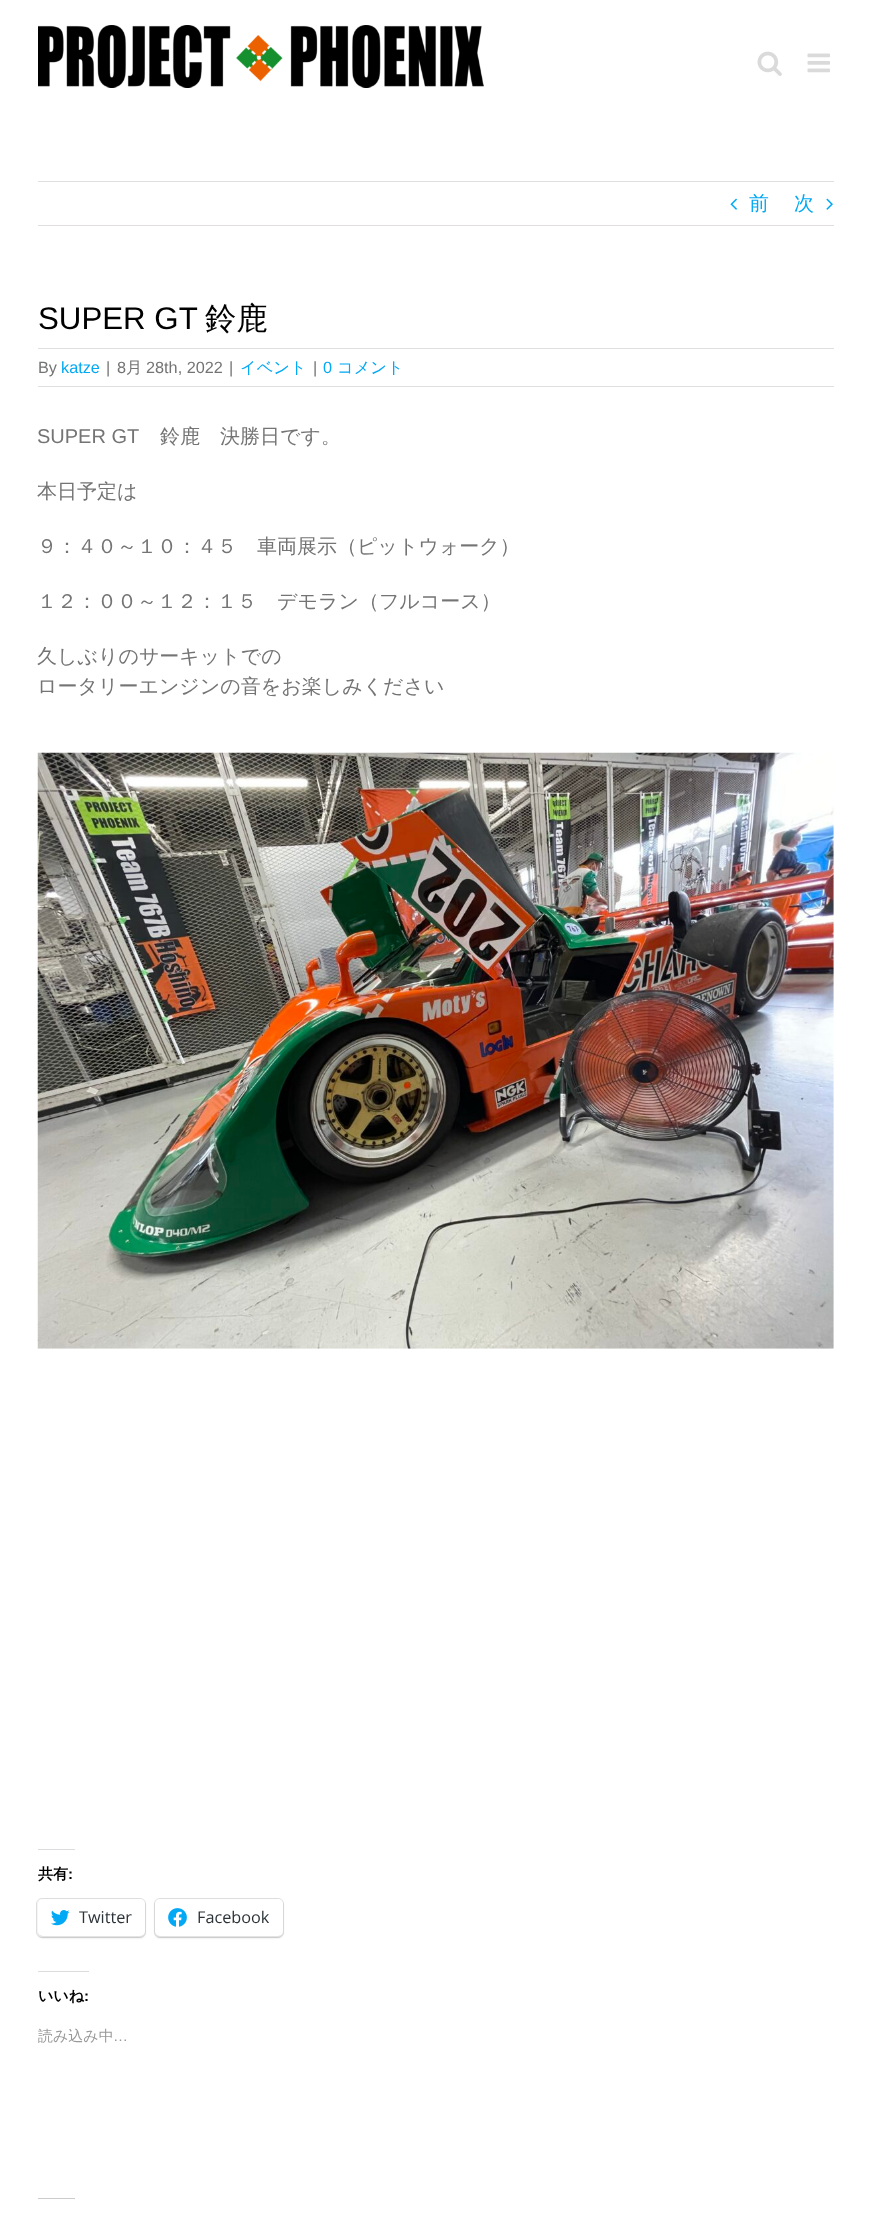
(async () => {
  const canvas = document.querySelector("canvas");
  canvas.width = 871;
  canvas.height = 2222;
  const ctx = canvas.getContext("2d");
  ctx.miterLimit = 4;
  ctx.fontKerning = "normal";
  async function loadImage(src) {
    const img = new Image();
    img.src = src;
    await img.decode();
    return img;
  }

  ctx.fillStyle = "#ffffff";
  ctx.fillRect(0, 0, 871, 2222);
  ctx.drawImage(await loadImage("img/1.png"), 38, 25, 446, 63);
  ctx.drawImage(await loadImage("img/2.png"), 757, 51, 25, 25);
  ctx.drawImage(await loadImage("img/3.png"), 807, 53, 23, 20);
  ctx.fillStyle = "#e0dede";
  ctx.fillRect(38, 181, 796, 1);
  ctx.fillRect(38, 225, 796, 1);
  ctx.drawImage(await loadImage("img/4.png"), 730, 198, 7, 12);
  ctx.drawImage(await loadImage("img/5.png"), 826, 198, 7, 12);
  ctx.fillRect(38, 348, 796, 1);
  ctx.fillRect(38, 386, 796, 1);
  ctx.drawImage(await loadImage("img/6.png"), 37, 752, 797, 597);
  ctx.fillStyle = "#dcdcde";
  ctx.fillRect(38, 1849, 37, 1);
  ctx.beginPath();
  ctx.roundRect(36.5, 1898.5, 109, 39, 5.5);
  ctx.strokeStyle = "#e0e0e0";
  ctx.stroke();
  ctx.fillStyle = "rgba(0, 0, 0, 0.12)";
  ctx.filter = "blur(1px)";
  ctx.beginPath();
  ctx.roundRect(38, 1900, 107, 38, 5);
  ctx.fill();
  ctx.filter = "none";
  ctx.fillStyle = "#ffffff";
  ctx.beginPath();
  ctx.roundRect(38, 1899, 107, 37, 5);
  ctx.fill();
  ctx.drawImage(await loadImage("img/7.png"), 51, 1910, 19, 16);
  ctx.beginPath();
  ctx.roundRect(154.5, 1898.5, 129, 39, 5.5);
  ctx.stroke();
  ctx.fillStyle = "rgba(0, 0, 0, 0.12)";
  ctx.filter = "blur(1px)";
  ctx.beginPath();
  ctx.roundRect(155, 1900, 128, 38, 5);
  ctx.fill();
  ctx.filter = "none";
  ctx.fillStyle = "#ffffff";
  ctx.beginPath();
  ctx.roundRect(155, 1899, 128, 37, 5);
  ctx.fill();
  ctx.drawImage(await loadImage("img/8.png"), 168, 1908, 19, 19);
  ctx.fillStyle = "#dcdcde";
  ctx.fillRect(38, 1971, 51, 1);
  ctx.fillStyle = "#cccccc";
  ctx.fillRect(38, 2198, 37, 1);
  ctx.font = "500 20px WenQuanYi Zen Hei";
  ctx.fillStyle = "#03a9f4";
  ctx.fillText("前", 749, 210);
  ctx.fillText("次", 794, 210);
  ctx.font = "31.25px Liberation Sans";
  ctx.fillStyle = "#000000";
  ctx.fillText("SUPER GT", 38, 329);
  ctx.font = "500 31.25px WenQuanYi Zen Hei";
  ctx.fillText("鈴鹿", 205, 329);
  ctx.font = "16.25px Liberation Sans";
  ctx.fillStyle = "#747474";
  ctx.fillText("By", 38, 373);
  ctx.fillStyle = "#03a9f4";
  ctx.fillText("katze", 61, 373);
  ctx.fillStyle = "#747474";
  ctx.fillText("|", 106, 373);
  ctx.fillText("8", 117, 373);
  ctx.font = "500 16.25px WenQuanYi Zen Hei";
  ctx.fillText("月", 126, 373);
  ctx.font = "16.25px Liberation Sans";
  ctx.fillText("28th, 2022", 146, 373);
  ctx.fillText("|", 229, 373);
  ctx.font = "500 16.25px WenQuanYi Zen Hei";
  ctx.fillStyle = "#03a9f4";
  ctx.fillText("イベント", 240, 373);
  ctx.font = "16.25px Liberation Sans";
  ctx.fillStyle = "#747474";
  ctx.fillText("|", 313, 373);
  ctx.fillStyle = "#03a9f4";
  ctx.fillText("0", 323, 373);
  ctx.font = "500 16.25px WenQuanYi Zen Hei";
  ctx.fillText("コメント", 337, 373);
  ctx.font = "20px Liberation Sans";
  ctx.fillStyle = "#747474";
  ctx.fillText("SUPER GT", 37, 443);
  ctx.font = "500 20px WenQuanYi Zen Hei";
  for (const [text, x, y] of [
    ["鈴鹿　決勝日です。", 160, 443],
    ["本日予定は", 37, 498],
    ["９：４０～１０：４５　車両展示（ピットウォーク）", 37, 553],
    ["１２：００～１２：１５　デモラン（フルコース）", 37, 608],
    ["久しぶりのサーキットでの", 37, 663],
    ["ロータリーエンジンの音をお楽しみください", 37, 693],
  ]) {
    ctx.fillText(text, x, y);
  }
  ctx.font = "bold 15px WenQuanYi Zen Hei";
  ctx.fillStyle = "#000000";
  ctx.fillText("共有", 38, 1879);
  ctx.font = "bold 15px Liberation Sans";
  ctx.fillText(":", 68, 1879);
  ctx.font = "16.25px Open Sans";
  ctx.fillStyle = "#2c3338";
  ctx.fillText("Twitter", 79, 1923);
  ctx.fillText("Facebook", 197, 1923);
  ctx.font = "bold 15px WenQuanYi Zen Hei";
  ctx.fillStyle = "#000000";
  ctx.fillText("いいね", 38, 2001);
  ctx.font = "bold 15px Liberation Sans";
  ctx.fillText(":", 84, 2001);
  ctx.font = "500 15px WenQuanYi Zen Hei";
  ctx.fillStyle = "#999999";
  ctx.fillText("読み込み中", 38, 2041);
  ctx.font = "15px Liberation Sans";
  ctx.fillText("…", 113, 2041);
})();
